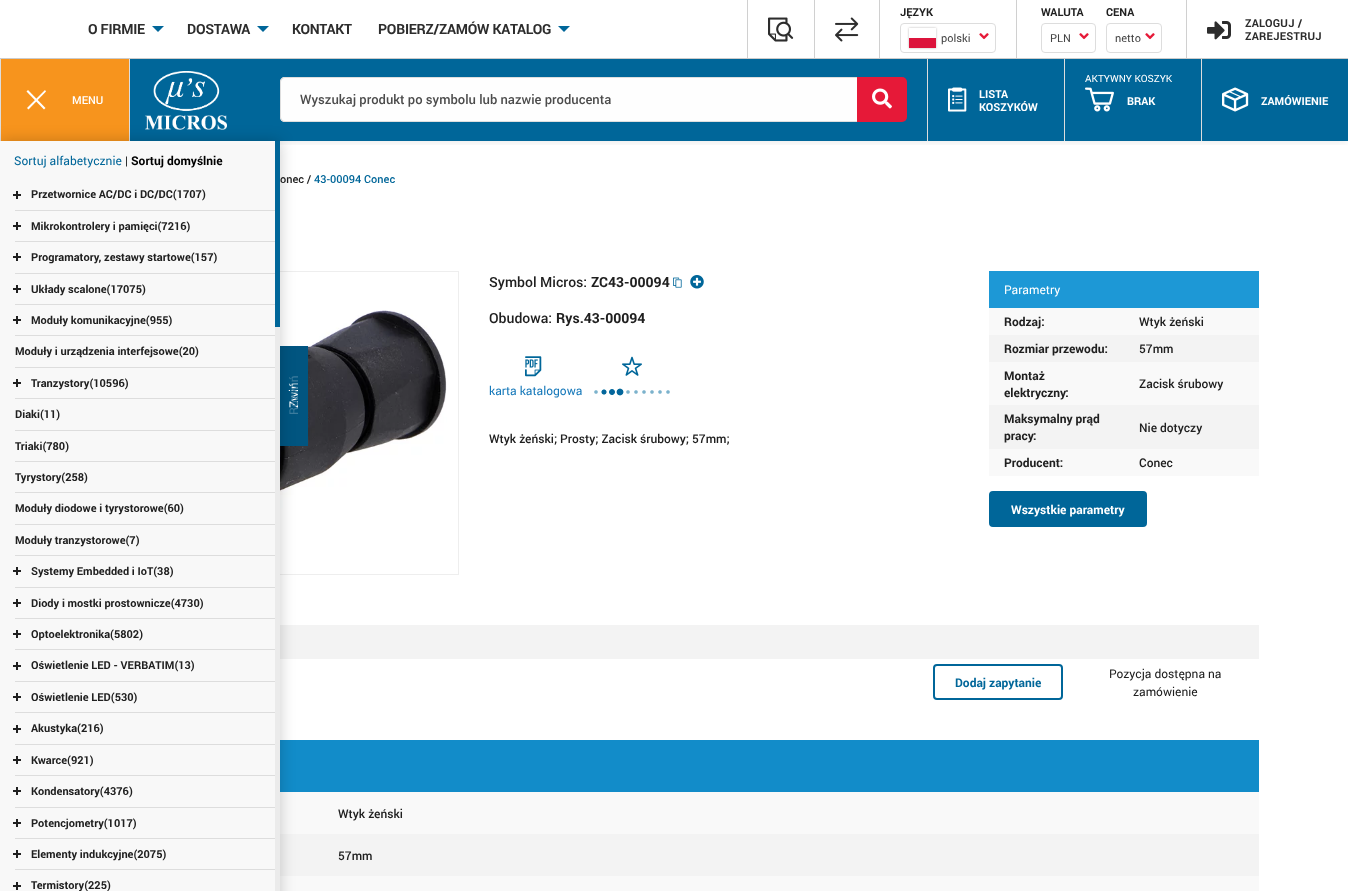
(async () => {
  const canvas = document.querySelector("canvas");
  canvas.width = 1348;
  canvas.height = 891;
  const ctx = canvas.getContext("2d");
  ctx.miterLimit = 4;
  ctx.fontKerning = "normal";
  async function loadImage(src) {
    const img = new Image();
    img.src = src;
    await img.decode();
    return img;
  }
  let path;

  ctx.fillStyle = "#ffffff";
  ctx.fillRect(0, 0, 1348, 891);
  ctx.save();
  ctx.beginPath();
  ctx.rect(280, 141, 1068, 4);
  ctx.clip();
  ctx.fillStyle = "rgba(0, 0, 0, 0.1)";
  ctx.filter = "blur(5px)";
  ctx.beginPath();
  ctx.rect(0, 0, 1348, 141);
  ctx.fill();
  ctx.filter = "none";
  ctx.restore();
  ctx.fillStyle = "#cbcbcb";
  ctx.fillRect(0, 58, 1348, 1);
  ctx.fillStyle = "#006699";
  path = new Path2D("M152 26H164L158 32Z");
  ctx.fill(path);
  path = new Path2D("M257 26H269L263 32Z");
  ctx.fill(path);
  path = new Path2D("M558 26H570L564 32Z");
  ctx.fill(path);
  ctx.fillStyle = "#d0d0d0";
  ctx.fillRect(747, 0, 1, 58);
  ctx.drawImage(await loadImage("img/1.png"), 768, 17, 26, 25);
  ctx.fillRect(814, 0, 1, 58);
  ctx.drawImage(await loadImage("img/2.png"), 835, 17, 24, 25);
  ctx.fillRect(879, 0, 1, 58);
  ctx.beginPath();
  ctx.roundRect(900.5, 23.5, 95, 29, 3.5);
  ctx.strokeStyle = "#dddddd";
  ctx.stroke();
  ctx.save();
  path = new Path2D("M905 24H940V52H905ZM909 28H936V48H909Z");
  ctx.clip(path, "evenodd");
  ctx.fillStyle = "#b9b6b6";
  ctx.filter = "blur(1px)";
  ctx.beginPath();
  ctx.rect(909, 28, 27, 20);
  ctx.fill();
  ctx.filter = "none";
  ctx.restore();
  ctx.fillStyle = "#dc143c";
  ctx.fillRect(909, 38, 27, 10);
  ctx.drawImage(await loadImage("img/3.png"), 979, 33, 10, 7);
  ctx.fillStyle = "#d0d0d0";
  ctx.fillRect(1016, 0, 1, 58);
  ctx.beginPath();
  ctx.roundRect(1041.5, 23.5, 54, 29, 3.5);
  ctx.stroke();
  ctx.drawImage(await loadImage("img/3.png"), 1079, 33, 10, 7);
  ctx.beginPath();
  ctx.roundRect(1106.5, 23.5, 55, 29, 3.5);
  ctx.stroke();
  ctx.drawImage(await loadImage("img/3.png"), 1145, 33, 10, 7);
  ctx.fillRect(1186, 0, 1, 58);
  ctx.drawImage(await loadImage("img/4.png"), 1207, 21, 24, 19);
  for (const [x, y, w, h, color] of [
    [130, 59, 1218, 82, "#006699"],
    [129, 59, 1, 82, "#dddddd"],
    [0, 59, 1, 82, "#dddddd"],
    [1, 59, 128, 82, "#f7941d"],
  ]) {
    ctx.fillStyle = color;
    ctx.fillRect(x, y, w, h);
  }
  ctx.fillStyle = "#ffffff";
  path = new Path2D("M28 90L45.5 108L44 109.5L26.5 91.5Z");
  ctx.fill(path);
  path = new Path2D("M27 108L45 90L46 91.5L28.5 109.5Z");
  ctx.fill(path);
  ctx.drawImage(await loadImage("img/5.png"), 145, 71, 82, 59);
  ctx.fillStyle = "#fefefe";
  ctx.beginPath();
  ctx.roundRect(280, 77, 577, 45, [5, 0, 0, 5]);
  ctx.fill();
  ctx.fillStyle = "#dedede";
  path = new Path2D("M285 77H857V122H285C282 122 280 120 280 117V82C280 79 282 77 285 77ZM285 78H857V121H285C283 121 281 119 281 117V82C281 80 283 78 285 78Z");
  ctx.fill(path, "evenodd");
  ctx.fillStyle = "#e61938";
  ctx.beginPath();
  ctx.roundRect(857, 77, 50, 45, [0, 5, 5, 0]);
  ctx.fill();
  ctx.drawImage(await loadImage("img/6.png"), 872, 88, 20, 21);
  ctx.fillStyle = "#dddddd";
  ctx.fillRect(927, 59, 1, 82);
  ctx.drawImage(await loadImage("img/7.png"), 948, 87, 19, 25);
  ctx.fillRect(1064, 59, 1, 82);
  ctx.drawImage(await loadImage("img/8.png"), 1085, 87, 29, 25);
  ctx.fillRect(1201, 59, 1, 82);
  ctx.drawImage(await loadImage("img/9.png"), 1222, 87, 27, 25);
  ctx.strokeStyle = "#eeeeee";
  ctx.strokeRect(89.5, 271.5, 369, 303);
  ctx.drawImage(await loadImage("img/10.png"), 280, 310, 167, 225);
  for (const [x, y, w, h, color] of [
    [280, 346, 28, 100, "#015580"],
    [280, 625, 979, 34, "#f3f3f3"],
    [280, 740, 979, 52, "#128cc9"],
    [280, 792, 979, 99, "#f9f9f9"],
    [280, 834, 979, 42, "#f3f3f3"],
  ]) {
    ctx.fillStyle = color;
    ctx.fillRect(x, y, w, h);
  }
  ctx.fillStyle = "rgba(0, 0, 0, 0.2)";
  ctx.filter = "blur(7.5px)";
  ctx.beginPath();
  ctx.rect(0, 141, 280, 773);
  ctx.fill();
  ctx.filter = "none";
  for (const [x, y, w, h, color] of [
    [0, 141, 275, 750, "#f8f8f8"],
    [15, 210, 265, 1, "#dddddd"],
    [13, 194, 8, 2, "#202020"],
    [16, 191, 2, 8, "#202020"],
    [15, 241, 265, 1, "#dddddd"],
    [13, 225, 8, 2, "#202020"],
    [16, 222, 2, 8, "#202020"],
    [15, 273, 265, 1, "#dddddd"],
    [13, 256, 8, 2, "#202020"],
    [16, 253, 2, 8, "#202020"],
    [15, 304, 265, 1, "#dddddd"],
    [13, 288, 8, 2, "#202020"],
    [16, 285, 2, 8, "#202020"],
    [15, 335, 265, 1, "#dddddd"],
    [13, 319, 8, 2, "#202020"],
    [16, 316, 2, 8, "#202020"],
    [15, 367, 265, 1, "#dddddd"],
    [15, 398, 265, 1, "#dddddd"],
    [13, 382, 8, 2, "#202020"],
    [16, 379, 2, 8, "#202020"],
    [15, 430, 265, 1, "#dddddd"],
    [15, 461, 265, 1, "#dddddd"],
    [15, 492, 265, 1, "#dddddd"],
    [15, 524, 265, 1, "#dddddd"],
    [15, 555, 265, 1, "#dddddd"],
    [15, 587, 265, 1, "#dddddd"],
    [13, 570, 8, 2, "#202020"],
    [16, 567, 2, 8, "#202020"],
    [15, 618, 265, 1, "#dddddd"],
    [13, 602, 8, 2, "#202020"],
    [16, 599, 2, 8, "#202020"],
    [15, 649, 265, 1, "#dddddd"],
    [13, 633, 8, 2, "#202020"],
    [16, 630, 2, 8, "#202020"],
    [15, 681, 265, 1, "#dddddd"],
    [13, 665, 8, 2, "#202020"],
    [16, 662, 2, 8, "#202020"],
    [15, 712, 265, 1, "#dddddd"],
    [13, 696, 8, 2, "#202020"],
    [16, 693, 2, 8, "#202020"],
    [15, 744, 265, 1, "#dddddd"],
    [13, 728, 8, 2, "#202020"],
    [16, 725, 2, 8, "#202020"],
    [15, 775, 265, 1, "#dddddd"],
    [13, 759, 8, 2, "#202020"],
    [16, 756, 2, 8, "#202020"],
    [15, 807, 265, 1, "#dddddd"],
    [13, 790, 8, 2, "#202020"],
    [16, 787, 2, 8, "#202020"],
    [15, 838, 265, 1, "#dddddd"],
    [13, 822, 8, 2, "#202020"],
    [16, 819, 2, 8, "#202020"],
    [15, 869, 265, 1, "#dddddd"],
    [13, 853, 8, 2, "#202020"],
    [16, 850, 2, 8, "#202020"],
    [13, 885, 8, 2, "#202020"],
    [16, 882, 2, 8, "#202020"],
    [275, 327, 5, 564, "#ebebeb"],
    [275, 141, 5, 186, "#006699"],
  ]) {
    ctx.fillStyle = color;
    ctx.fillRect(x, y, w, h);
  }
  ctx.drawImage(await loadImage("img/11.png"), 673, 277, 9, 11);
  ctx.drawImage(await loadImage("img/12.png"), 690, 275, 14, 14);
  ctx.drawImage(await loadImage("img/13.png"), 525, 356, 17, 21);
  ctx.drawImage(await loadImage("img/14.png"), 622, 356, 20, 20);
  ctx.drawImage(await loadImage("img/15.png"), 594, 388, 76, 8);
  for (const [x, y, w, h, color] of [
    [989, 271, 270, 37, "#1d98d6"],
    [989, 308, 270, 27, "#f9f9f9"],
    [989, 335, 270, 27, "#f3f3f3"],
    [989, 362, 270, 43, "#f9f9f9"],
    [989, 405, 270, 44, "#f3f3f3"],
    [989, 449, 270, 27, "#f9f9f9"],
  ]) {
    ctx.fillStyle = color;
    ctx.fillRect(x, y, w, h);
  }
  ctx.fillStyle = "#006699";
  ctx.beginPath();
  ctx.roundRect(990, 492, 156, 34, 3);
  ctx.fill();
  ctx.strokeStyle = "#006699";
  ctx.lineWidth = 2;
  ctx.stroke();
  ctx.beginPath();
  ctx.roundRect(934, 665, 128, 34, 3);
  ctx.stroke();
  ctx.letterSpacing = "-0.25px";
  ctx.font = "bold 14px Roboto";
  ctx.fillStyle = "#2d2d2d";
  for (const [text, x, y] of [
    ["O FIRMIE", 88, 34],
    ["DOSTAWA", 187, 34],
    ["KONTAKT", 292, 34],
    ["POBIERZ/ZAMÓW KATALOG", 378, 34],
  ]) {
    ctx.fillText(text, x, y);
  }
  ctx.letterSpacing = "0px";
  ctx.font = "bold 11px Roboto";
  ctx.fillStyle = "#202020";
  ctx.fillText("JĘZYK", 900, 16);
  ctx.font = "11px Roboto";
  ctx.fillStyle = "#444444";
  ctx.fillText("polski", 941, 42);
  ctx.font = "bold 11px Roboto";
  ctx.fillStyle = "#202020";
  ctx.fillText("WALUTA", 1041, 16);
  ctx.font = "11px Roboto";
  ctx.fillStyle = "#444444";
  ctx.fillText("PLN", 1050, 42);
  ctx.font = "bold 11px Roboto";
  ctx.fillStyle = "#202020";
  ctx.fillText("CENA", 1106, 16);
  ctx.font = "11px Roboto";
  ctx.fillStyle = "#444444";
  ctx.fillText("netto", 1115, 42);
  ctx.letterSpacing = "0.25px";
  ctx.font = "bold 11px Roboto";
  ctx.fillStyle = "#2d2d2d";
  ctx.fillText("ZALOGUJ /", 1245, 27);
  ctx.fillText("ZAREJESTRUJ", 1245, 40);
  ctx.letterSpacing = "0px";
  ctx.font = "500 11px Roboto";
  ctx.fillStyle = "#ffffff";
  ctx.fillText("MENU", 72, 104);
  ctx.font = "500 13px Roboto";
  ctx.fillStyle = "#4c4c4c";
  ctx.fillText("Wyszukaj produkt po symbolu lub nazwie producenta", 300, 104);
  ctx.font = "bold 11px Roboto";
  ctx.fillStyle = "#ffffff";
  ctx.fillText("LISTA", 979, 98);
  ctx.fillText("KOSZYKÓW", 979, 111);
  ctx.font = "10px Roboto";
  ctx.fillText("AKTYWNY KOSZYK", 1085, 82);
  ctx.font = "bold 11px Roboto";
  ctx.fillText("BRAK", 1127, 105);
  ctx.fillText("ZAMÓWIENIE", 1261, 105);
  ctx.font = "12px Roboto";
  ctx.fillStyle = "#006699";
  ctx.fillText("Sortuj alfabetycznie", 14, 165);
  ctx.fillStyle = "#202020";
  ctx.fillText("|", 125, 165);
  ctx.font = "bold 12px Roboto";
  ctx.fillStyle = "#000000";
  ctx.fillText("Sortuj domyślnie", 131, 165);
  ctx.font = "bold 11px Roboto";
  ctx.fillStyle = "#202020";
  for (const [text, x, y] of [
    ["Przetwornice AC/DC i DC/DC(1707)", 31, 198],
    ["Mikrokontrolery i pamięci(7216)", 31, 230],
    ["Programatory, zestawy startowe(157)", 31, 261],
    ["Układy scalone(17075)", 31, 293],
    ["Moduły komunikacyjne(955)", 31, 324],
    ["Moduły i urządzenia interfejsowe(20)", 15, 355],
    ["Tranzystory(10596)", 31, 387],
    ["Diaki(11)", 15, 418],
    ["Triaki(780)", 15, 450],
    ["Tyrystory(258)", 15, 481],
    ["Moduły diodowe i tyrystorowe(60)", 15, 512],
    ["Moduły tranzystorowe(7)", 15, 544],
    ["Systemy Embedded i IoT(38)", 31, 575],
    ["Diody i mostki prostownicze(4730)", 31, 607],
    ["Optoelektronika(5802)", 31, 638],
    ["Oświetlenie LED - VERBATIM(13)", 31, 669],
    ["Oświetlenie LED(530)", 31, 701],
    ["Akustyka(216)", 31, 732],
    ["Kwarce(921)", 31, 764],
    ["Kondensatory(4376)", 31, 795],
    ["Potencjometry(1017)", 31, 827],
    ["Elementy indukcyjne(2075)", 31, 858],
    ["Termistory(225)", 31, 889],
  ]) {
    ctx.fillText(text, x, y);
  }
  ctx.font = "12px Roboto";
  ctx.fillStyle = "#ffffff";
  ctx.save();
  ctx.translate(298, 408);
  ctx.rotate(-90 * Math.PI / 180);
  ctx.fillText("Zwiń", 0, 0);
  ctx.restore();
  ctx.fillStyle = "#3c7c9d";
  ctx.save();
  ctx.translate(298, 415);
  ctx.rotate(-90 * Math.PI / 180);
  ctx.fillText("Rozwiń", 0, 0);
  ctx.restore();
  ctx.font = "500 11px Roboto";
  ctx.fillStyle = "#202020";
  ctx.fillText("onec /", 280, 183);
  ctx.fillStyle = "#006699";
  ctx.fillText("43-00094 Conec", 314, 183);
  ctx.font = "500 14px Roboto";
  ctx.fillStyle = "#202020";
  ctx.fillText("Symbol Micros:", 489, 287);
  ctx.font = "bold 14px Roboto";
  ctx.fillText("ZC43-00094", 591, 287);
  ctx.font = "500 14px Roboto";
  ctx.fillText("Obudowa:", 489, 323);
  ctx.font = "bold 14px Roboto";
  ctx.fillText("Rys.43-00094", 556, 323);
  ctx.font = "12px Roboto";
  ctx.fillStyle = "#1779ba";
  ctx.fillText("karta katalogowa", 489, 395);
  ctx.font = "500 12px Roboto";
  ctx.fillStyle = "#202020";
  ctx.fillText("Wtyk żeński; Prosty; Zacisk śrubowy; 57mm;", 489, 443);
  ctx.font = "12px Roboto";
  ctx.fillStyle = "#ffffff";
  ctx.fillText("Parametry", 1004, 294);
  ctx.font = "bold 12px Roboto";
  ctx.fillStyle = "#202020";
  ctx.fillText("Rodzaj:", 1004, 326);
  ctx.font = "500 12px Roboto";
  ctx.fillText("Wtyk żeński", 1139, 326);
  ctx.font = "bold 12px Roboto";
  ctx.fillText("Rozmiar przewodu:", 1004, 353);
  ctx.font = "500 12px Roboto";
  ctx.fillText("57mm", 1139, 353);
  ctx.font = "bold 12px Roboto";
  ctx.fillText("Montaż", 1004, 380);
  ctx.fillText("elektryczny:", 1004, 397);
  ctx.font = "500 12px Roboto";
  ctx.fillText("Zacisk śrubowy", 1139, 388);
  ctx.font = "bold 12px Roboto";
  ctx.fillText("Maksymalny prąd", 1004, 423);
  ctx.fillText("pracy:", 1004, 440);
  ctx.font = "500 12px Roboto";
  ctx.fillText("Nie dotyczy", 1139, 432);
  ctx.font = "bold 12px Roboto";
  ctx.fillText("Producent:", 1004, 467);
  ctx.font = "500 12px Roboto";
  ctx.fillText("Conec", 1139, 467);
  ctx.font = "bold 12px Roboto";
  ctx.fillStyle = "#ffffff";
  ctx.fillText("Wszystkie parametry", 1011, 514);
  ctx.fillStyle = "#006699";
  ctx.fillText("Dodaj zapytanie", 955, 687);
  ctx.font = "12px Roboto";
  ctx.fillStyle = "#202020";
  ctx.fillText("Pozycja dostępna na", 1109, 678);
  ctx.fillText("zamówienie", 1133, 696);
  ctx.font = "500 12px Roboto";
  ctx.fillText("Wtyk żeński", 338, 818);
  ctx.fillText("57mm", 338, 860);
})();
